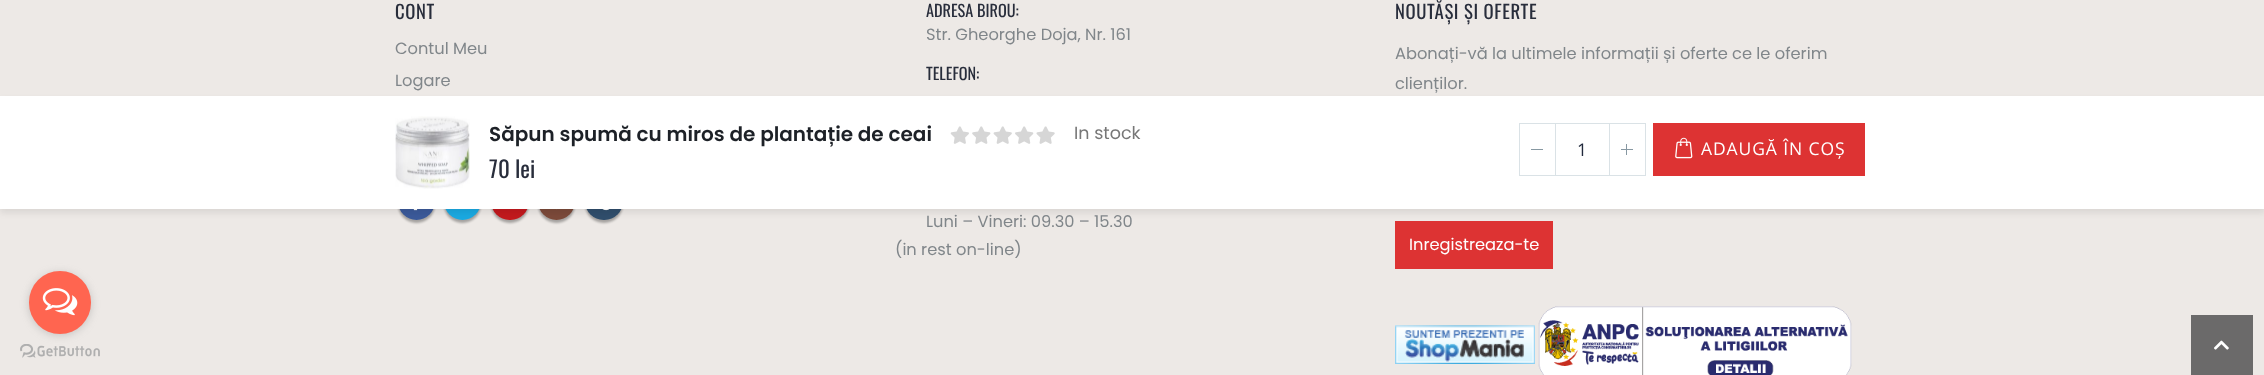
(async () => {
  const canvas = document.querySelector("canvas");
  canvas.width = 2264;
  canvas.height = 375;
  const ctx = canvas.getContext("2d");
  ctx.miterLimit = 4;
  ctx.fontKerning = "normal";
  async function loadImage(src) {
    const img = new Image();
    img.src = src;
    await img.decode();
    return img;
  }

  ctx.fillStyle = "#ede9e6";
  ctx.fillRect(0, 0, 2264, 375);
  ctx.fillStyle = "rgba(0, 0, 0, 0.3)";
  ctx.filter = "blur(1px)";
  ctx.beginPath();
  ctx.roundRect(398, 185, 37, 38, 18.5);
  ctx.fill();
  ctx.filter = "none";
  ctx.fillStyle = "#3b5a9a";
  ctx.beginPath();
  ctx.arc(416.5, 201.5, 18.5, 0, Math.PI * 2);
  ctx.fill();
  ctx.drawImage(await loadImage("img/1.png"), 413, 209, 5, 2);
  ctx.fillStyle = "rgba(0, 0, 0, 0.3)";
  ctx.filter = "blur(1px)";
  ctx.beginPath();
  ctx.roundRect(444, 185, 37, 38, 18.5);
  ctx.fill();
  ctx.filter = "none";
  ctx.fillStyle = "#1aa9e1";
  ctx.beginPath();
  ctx.arc(462.5, 201.5, 18.5, 0, Math.PI * 2);
  ctx.fill();
  ctx.fillStyle = "rgba(0, 0, 0, 0.3)";
  ctx.filter = "blur(1px)";
  ctx.beginPath();
  ctx.roundRect(491, 185, 38, 38, 19);
  ctx.fill();
  ctx.filter = "none";
  ctx.fillStyle = "#c3191e";
  ctx.beginPath();
  ctx.roundRect(491, 183, 38, 37, 18.5);
  ctx.fill();
  ctx.fillStyle = "rgba(0, 0, 0, 0.3)";
  ctx.filter = "blur(1px)";
  ctx.beginPath();
  ctx.roundRect(538, 185, 37, 38, 18.5);
  ctx.fill();
  ctx.filter = "none";
  ctx.fillStyle = "#7c4a3a";
  ctx.beginPath();
  ctx.arc(556.5, 201.5, 18.5, 0, Math.PI * 2);
  ctx.fill();
  ctx.drawImage(await loadImage("img/2.png"), 556, 209, 1, 1);
  ctx.fillStyle = "rgba(0, 0, 0, 0.3)";
  ctx.filter = "blur(1px)";
  ctx.beginPath();
  ctx.roundRect(585, 185, 38, 38, 19);
  ctx.fill();
  ctx.filter = "none";
  ctx.fillStyle = "#304e6c";
  ctx.beginPath();
  ctx.roundRect(585, 183, 38, 37, 18.5);
  ctx.fill();
  ctx.drawImage(await loadImage("img/3.png"), 602, 209, 8, 2);
  ctx.fillStyle = "#dd3333";
  ctx.fillRect(1395, 221, 158, 48);
  ctx.drawImage(await loadImage("img/4.png"), 1395, 325, 140, 39);
  ctx.drawImage(await loadImage("img/5.png"), 1538, 306, 314, 69);
  ctx.fillStyle = "rgba(0, 0, 0, 0.08)";
  ctx.filter = "blur(3px)";
  ctx.beginPath();
  ctx.rect(0, 100, 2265, 113);
  ctx.fill();
  ctx.filter = "none";
  ctx.fillStyle = "#ffffff";
  ctx.fillRect(0, 96, 2264, 113);
  ctx.drawImage(await loadImage("img/6.png"), 395, 116, 75, 73);
  ctx.drawImage(await loadImage("img/7.png"), 950, 126, 105, 18);
  ctx.fillStyle = "#dae2e6";
  ctx.fillRect(1555, 123, 55, 1);
  ctx.fillRect(1555, 175, 55, 1);
  ctx.strokeStyle = "#dae2e6";
  ctx.strokeRect(1519.5, 123.5, 36, 52);
  ctx.fillStyle = "#8798a2";
  ctx.fillRect(1531, 149, 12, 1);
  ctx.strokeRect(1609.5, 123.5, 36, 52);
  for (const [x, y, w, h, color] of [
    [1621, 149, 12, 1, "#8798a2"],
    [1626, 144, 1, 11, "#8798a2"],
    [1653, 123, 212, 53, "#dd3333"],
  ]) {
    ctx.fillStyle = color;
    ctx.fillRect(x, y, w, h);
  }
  ctx.drawImage(await loadImage("img/8.png"), 1675, 137, 18, 22);
  ctx.drawImage(await loadImage("img/10.png"), 20, 344, 80, 14);
  ctx.fillStyle = "rgba(136, 136, 136, 0.4)";
  ctx.filter = "blur(4.5px)";
  ctx.beginPath();
  ctx.roundRect(29, 273, 62, 62, 31);
  ctx.fill();
  ctx.filter = "none";
  ctx.fillStyle = "#ff6550";
  ctx.beginPath();
  ctx.roundRect(29, 271, 62, 63, 31);
  ctx.fill();
  ctx.drawImage(await loadImage("img/9.png"), 42, 288, 36, 28);
  ctx.fillStyle = "#6b6a6a";
  ctx.fillRect(2191, 315, 62, 60);
  ctx.drawImage(await loadImage("img/11.png"), 2214, 340, 15, 10);
  ctx.letterSpacing = "0.6px";
  ctx.font = "18.75px Oswald";
  ctx.fillStyle = "#282d3b";
  ctx.fillText("CONT", 395, 19);
  ctx.letterSpacing = "0px";
  ctx.font = "16.25px Poppins";
  ctx.fillStyle = "#80868a";
  ctx.fillText("Contul Meu", 395, 54);
  ctx.fillText("Logare", 395, 86);
  ctx.font = "16.25px Oswald";
  ctx.fillStyle = "#282d3b";
  ctx.fillText("ADRESA BIROU:", 926, 17);
  ctx.font = "16.25px Poppins";
  ctx.fillStyle = "#80868a";
  ctx.fillText("Str. Gheorghe Doja, Nr. 161", 926, 40);
  ctx.font = "16.25px Oswald";
  ctx.fillStyle = "#282d3b";
  ctx.fillText("TELEFON:", 926, 80);
  ctx.font = "16.25px Poppins";
  ctx.fillStyle = "#80868a";
  ctx.fillText("Luni – Vineri: 09.30 – 15.30", 926, 227);
  ctx.fillText("(in rest on-line)", 895, 255);
  ctx.letterSpacing = "0.6px";
  ctx.font = "18.75px Oswald";
  ctx.fillStyle = "#282d3b";
  ctx.fillText("NOUTĂȘI ȘI OFERTE", 1395, 19);
  ctx.letterSpacing = "0px";
  ctx.font = "16.25px Poppins";
  ctx.fillStyle = "#80868a";
  ctx.fillText("Abonați-vă la ultimele informații și oferte ce le oferim", 1395, 59);
  ctx.fillText("clienților.", 1395, 89);
  ctx.fillStyle = "#ffffff";
  ctx.fillText("Inregistreaza-te", 1409, 250);
  ctx.font = "600 20px Poppins";
  ctx.fillStyle = "#1d2127";
  ctx.fillText("Săpun spumă cu miros de plantație de ceai", 489, 141);
  ctx.font = "23px Oswald";
  ctx.fillStyle = "#282d3b";
  ctx.fillText("70 lei", 489, 178);
  ctx.font = "17.5px Poppins";
  ctx.fillStyle = "#777777";
  ctx.fillText("In stock", 1074, 139);
  ctx.font = "17.5px Open Sans";
  ctx.fillStyle = "#21293c";
  ctx.fillText("1", 1577, 156);
  ctx.letterSpacing = "0.9px";
  ctx.fillStyle = "#ffffff";
  ctx.fillText("ADAUGĂ ÎN COȘ", 1701, 155);
})();
